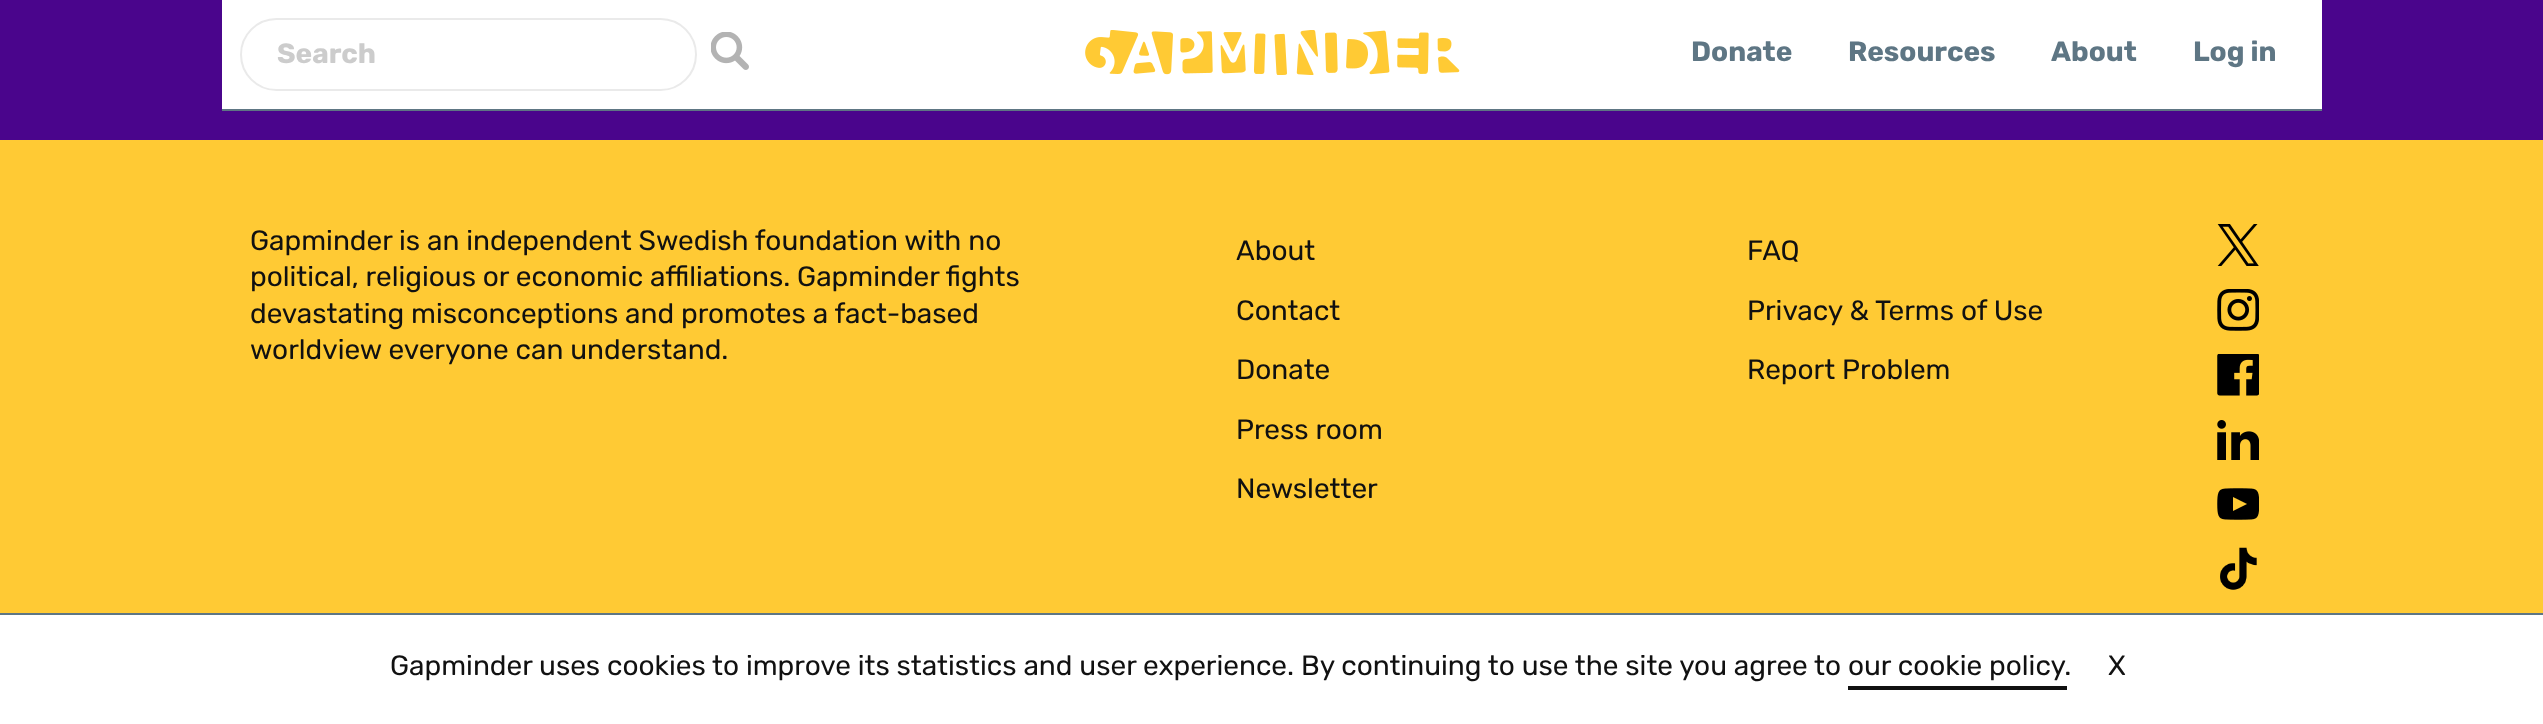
(async () => {
  const canvas = document.querySelector("canvas");
  canvas.width = 2543;
  canvas.height = 724;
  const ctx = canvas.getContext("2d");
  ctx.miterLimit = 4;
  ctx.fontKerning = "normal";
  async function loadImage(src) {
    const img = new Image();
    img.src = src;
    await img.decode();
    return img;
  }

  ctx.fillStyle = "#4a058c";
  ctx.fillRect(0, 0, 2543, 724);
  ctx.fillStyle = "#ffffff";
  ctx.fillRect(222, 0, 2100, 109);
  ctx.fillStyle = "#5e7684";
  ctx.fillRect(222, 109, 2100, 2);
  ctx.beginPath();
  ctx.roundRect(241, 19, 455, 71, 35.5);
  ctx.strokeStyle = "#eaeaea";
  ctx.lineWidth = 2;
  ctx.stroke();
  ctx.drawImage(await loadImage("img/1.png"), 711, 32, 38, 38);
  ctx.drawImage(await loadImage("img/2.png"), 1085, 30, 375, 45);
  for (const [x, y, w, h, color] of [
    [0, 615, 2543, 109, "#ffffff"],
    [0, 613, 2543, 2, "#5e7684"],
    [1848, 686, 219, 4, "#111111"],
    [0, 140, 2543, 473, "#ffca34"],
  ]) {
    ctx.fillStyle = color;
    ctx.fillRect(x, y, w, h);
  }
  ctx.drawImage(await loadImage("img/3.png"), 2217, 224, 42, 42);
  ctx.drawImage(await loadImage("img/4.png"), 2217, 289, 42, 42);
  ctx.drawImage(await loadImage("img/5.png"), 2217, 354, 42, 42);
  ctx.drawImage(await loadImage("img/6.png"), 2217, 420, 42, 40);
  ctx.drawImage(await loadImage("img/7.png"), 2217, 488, 42, 32);
  ctx.drawImage(await loadImage("img/8.png"), 2220, 547, 37, 43);
  ctx.font = "bold 28px Rubik";
  ctx.fillStyle = "#cccccc";
  ctx.fillText("Search", 277, 63);
  ctx.fillStyle = "#5e7684";
  for (const [text, x, y] of [
    ["Donate", 1691, 61],
    ["Resources", 1848, 61],
    ["About", 2051, 61],
    ["Log in", 2193, 61],
  ]) {
    ctx.fillText(text, x, y);
  }
  ctx.font = "28px Rubik";
  ctx.fillStyle = "#111111";
  for (const [text, x, y] of [
    ["Gapminder uses cookies to improve its statistics and user experience. By continuing to use the site you agree to our cookie policy.", 390, 675],
    ["X", 2108, 675],
    ["Gapminder is an independent Swedish foundation with no", 250, 250],
    ["political, religious or economic affiliations. Gapminder fights", 250, 286],
    ["devastating misconceptions and promotes a fact-based", 250, 323],
    ["worldview everyone can understand.", 250, 359],
    ["About", 1236, 260],
    ["Contact", 1236, 320],
    ["Donate", 1236, 379],
    ["Press room", 1236, 439],
    ["Newsletter", 1236, 498],
    ["FAQ", 1747, 260],
    ["Privacy & Terms of Use", 1747, 320],
    ["Report Problem", 1747, 379],
  ]) {
    ctx.fillText(text, x, y);
  }
})();
